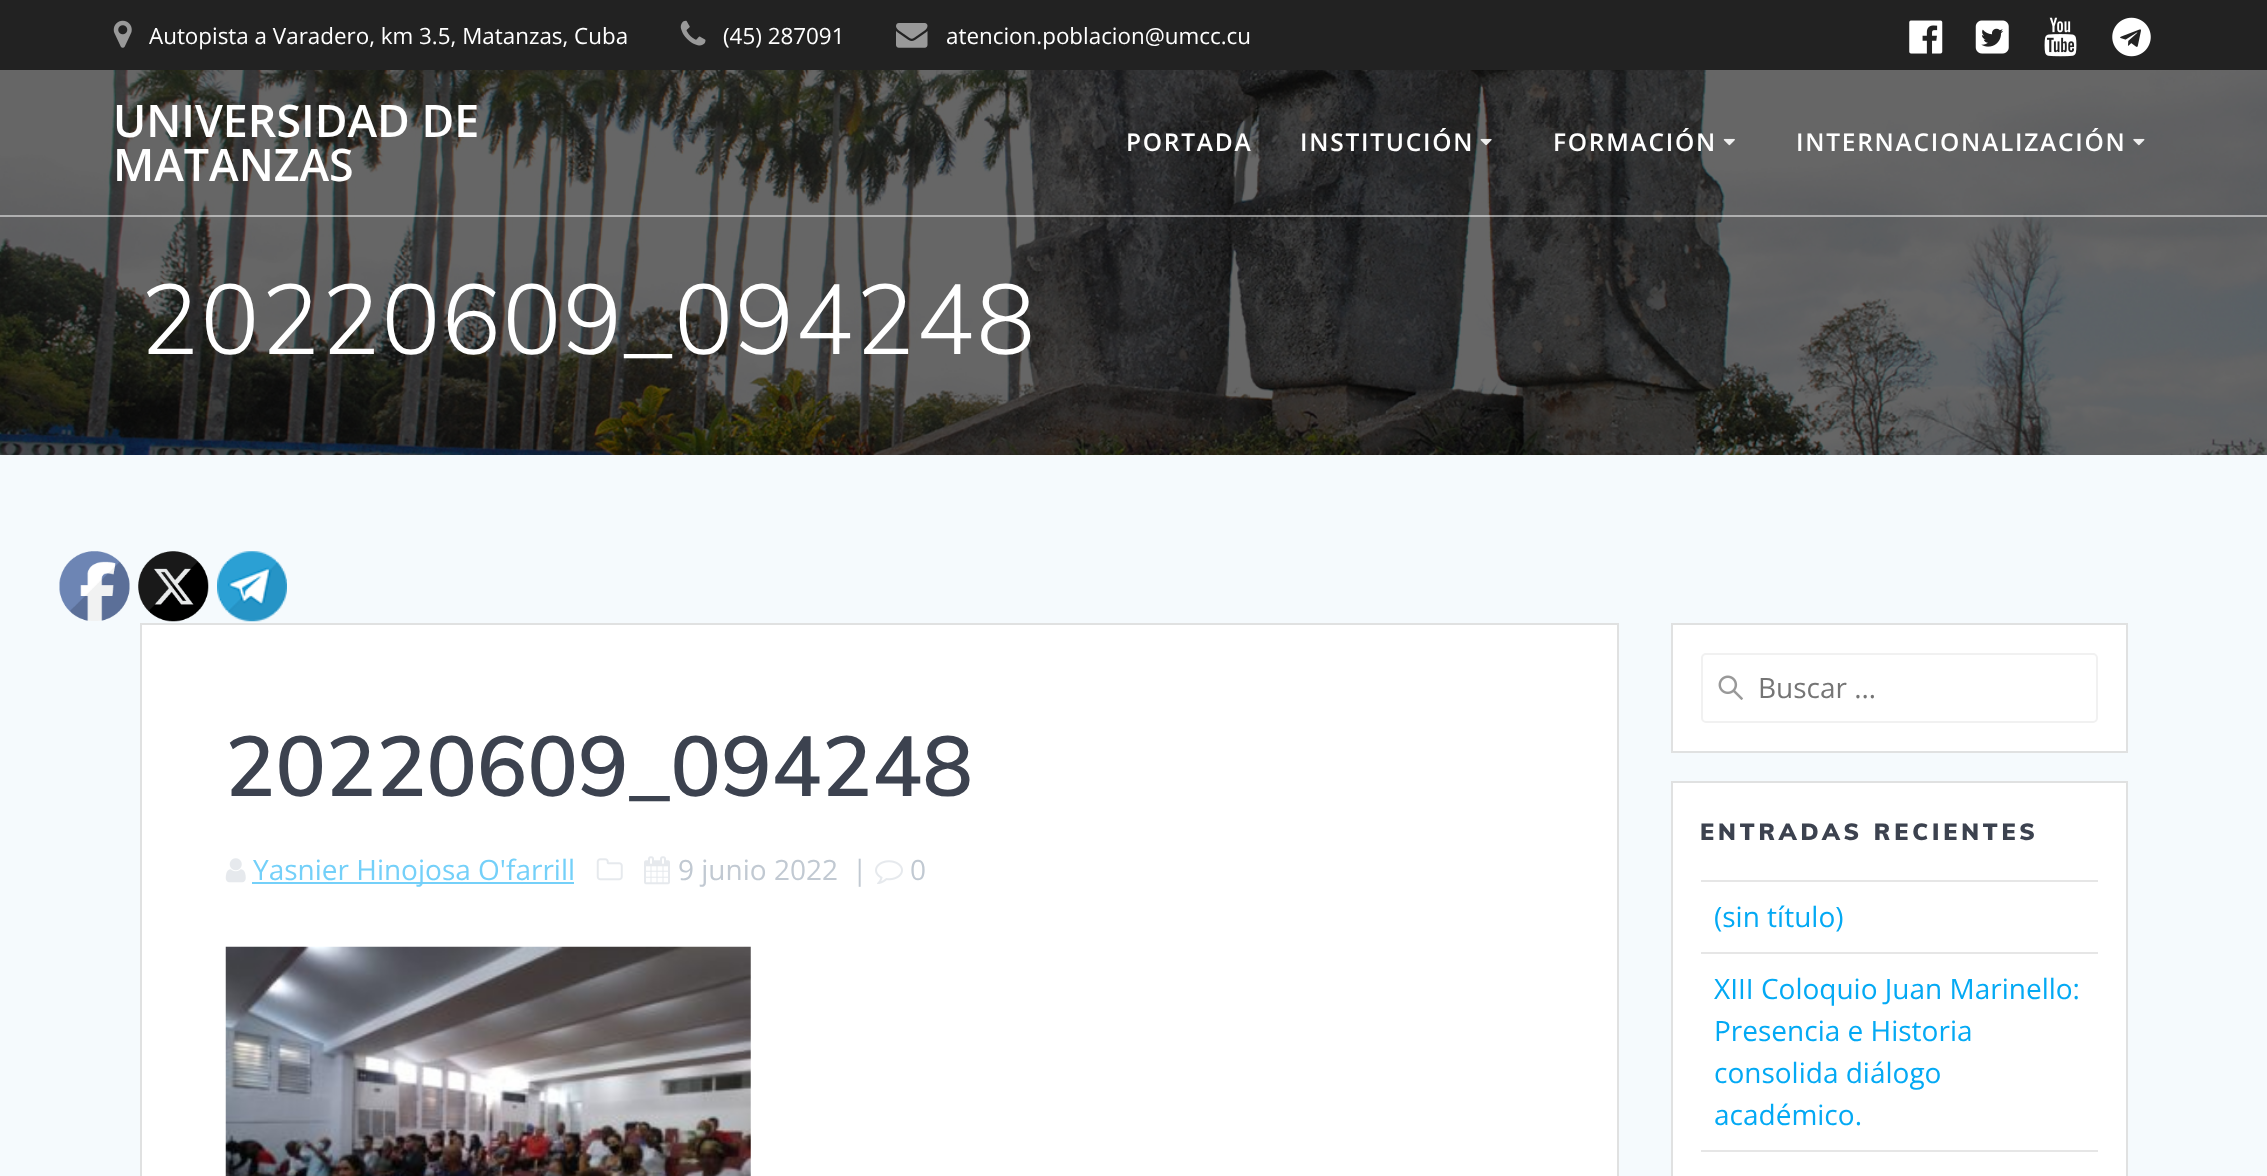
(async () => {
  const canvas = document.querySelector("canvas");
  canvas.width = 2267;
  canvas.height = 1176;
  const ctx = canvas.getContext("2d");
  ctx.miterLimit = 4;
  ctx.fontKerning = "normal";
  async function loadImage(src) {
    const img = new Image();
    img.src = src;
    await img.decode();
    return img;
  }

  ctx.fillStyle = "#ffffff";
  ctx.fillRect(0, 0, 2267, 1176);
  ctx.fillStyle = "#222222";
  ctx.fillRect(0, 0, 2267, 70);
  ctx.drawImage(await loadImage("img/1.png"), 113, 20, 19, 28);
  ctx.drawImage(await loadImage("img/2.png"), 680, 20, 26, 26);
  ctx.drawImage(await loadImage("img/3.png"), 896, 23, 32, 25);
  ctx.drawImage(await loadImage("img/4.png"), 1909, 20, 34, 34);
  ctx.drawImage(await loadImage("img/5.png"), 1975, 20, 34, 34);
  ctx.drawImage(await loadImage("img/6.png"), 2044, 17, 33, 40);
  ctx.drawImage(await loadImage("img/7.png"), 2112, 17, 39, 40);
  ctx.drawImage(await loadImage("img/11.png"), 0, 70, 2267, 385);
  ctx.fillStyle = "rgba(255, 255, 255, 0.5)";
  ctx.fillRect(0, 215, 2267, 2);
  ctx.drawImage(await loadImage("img/8.png"), 1480, 138, 12, 8);
  ctx.drawImage(await loadImage("img/9.png"), 1723, 138, 12, 8);
  ctx.drawImage(await loadImage("img/10.png"), 2133, 138, 12, 8);
  ctx.fillStyle = "#f5fafd";
  ctx.fillRect(0, 455, 2267, 721);
  ctx.fillStyle = "#ffffff";
  ctx.beginPath();
  ctx.rect(141, 624, 1477, 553);
  ctx.fill();
  ctx.strokeStyle = "#e0e1e1";
  ctx.lineWidth = 2;
  ctx.stroke();
  ctx.drawImage(await loadImage("img/12.png"), 225, 858, 21, 25);
  ctx.fillStyle = "#74d0f9";
  ctx.fillRect(252, 882, 322, 2);
  ctx.drawImage(await loadImage("img/13.png"), 596, 858, 27, 23);
  ctx.drawImage(await loadImage("img/14.png"), 644, 856, 26, 29);
  ctx.drawImage(await loadImage("img/15.png"), 875, 860, 28, 24);
  ctx.drawImage(await loadImage("img/16.png"), 225, 946, 526, 230);
  ctx.fillStyle = "#ffffff";
  ctx.beginPath();
  ctx.rect(1672, 624, 455, 128);
  ctx.fill();
  ctx.stroke();
  ctx.drawImage(await loadImage("img/17.png"), 1718, 675, 25, 25);
  ctx.beginPath();
  ctx.roundRect(1702, 654, 395, 68, 4);
  ctx.strokeStyle = "#f1f1f1";
  ctx.stroke();
  ctx.beginPath();
  ctx.rect(1672, 782, 455, 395);
  ctx.fill();
  ctx.strokeStyle = "#e0e1e1";
  ctx.stroke();
  for (const [x, y, w, h, color] of [
    [1701, 880, 397, 2, "#e6e6e6"],
    [1701, 952, 397, 2, "#e6e6e6"],
    [1701, 1150, 397, 2, "#e6e6e6"],
  ]) {
    ctx.fillStyle = color;
    ctx.fillRect(x, y, w, h);
  }
  ctx.drawImage(await loadImage("img/18.png"), 59, 551, 71, 70);
  ctx.drawImage(await loadImage("img/19.png"), 138, 551, 71, 71);
  ctx.drawImage(await loadImage("img/20.png"), 217, 551, 70, 71);
  ctx.font = "22.4px Open Sans";
  ctx.fillStyle = "#ffffff";
  for (const [text, x, y] of [
    ["Autopista a Varadero, km 3.5, Matanzas, Cuba", 149, 44],
    ["(45) 287091", 723, 44],
    ["atencion.poblacion@umcc.cu", 946, 44],
  ]) {
    ctx.fillText(text, x, y);
  }
  ctx.font = "600 44.75px Open Sans";
  ctx.fillText("UNIVERSIDAD DE", 113, 137);
  ctx.fillText("MATANZAS", 113, 181);
  ctx.letterSpacing = "1.75px";
  ctx.font = "600 24.5px Open Sans";
  for (const [text, x, y] of [
    ["PORTADA", 1126, 151],
    ["INSTITUCIÓN", 1300, 151],
    ["FORMACIÓN", 1553, 151],
    ["INTERNACIONALIZACIÓN", 1796, 151],
  ]) {
    ctx.fillText(text, x, y);
  }
  ctx.letterSpacing = "1.6px";
  ctx.font = "300 98px Muli";
  ctx.fillText("20220609_094248", 140, 354);
  ctx.letterSpacing = "0px";
  ctx.font = "600 84px Muli";
  ctx.fillStyle = "#3c424f";
  ctx.fillText("20220609_094248", 225, 796);
  ctx.font = "28px Open Sans";
  ctx.fillStyle = "#74d0f9";
  ctx.fillText("Yasnier Hinojosa O'farrill", 253, 880);
  ctx.fillStyle = "#c1c9d2";
  for (const [text, x, y] of [
    ["9 junio 2022", 678, 880],
    ["|", 852, 880],
    ["0", 910, 880],
  ]) {
    ctx.fillText(text, x, y);
  }
  ctx.fillStyle = "#757575";
  ctx.fillText("Buscar …", 1758, 698);
  ctx.letterSpacing = "3.9px";
  ctx.font = "900 23.25px Muli";
  ctx.fillStyle = "#3c424f";
  ctx.fillText("ENTRADAS RECIENTES", 1700, 840);
  ctx.letterSpacing = "0px";
  ctx.font = "28px Open Sans";
  ctx.fillStyle = "#03a9f4";
  for (const [text, x, y] of [
    ["(sin título)", 1714, 927],
    ["XIII Coloquio Juan Marinello:", 1714, 999],
    ["Presencia e Historia", 1714, 1041],
    ["consolida diálogo", 1714, 1083],
    ["académico.", 1714, 1125],
  ]) {
    ctx.fillText(text, x, y);
  }
})();
